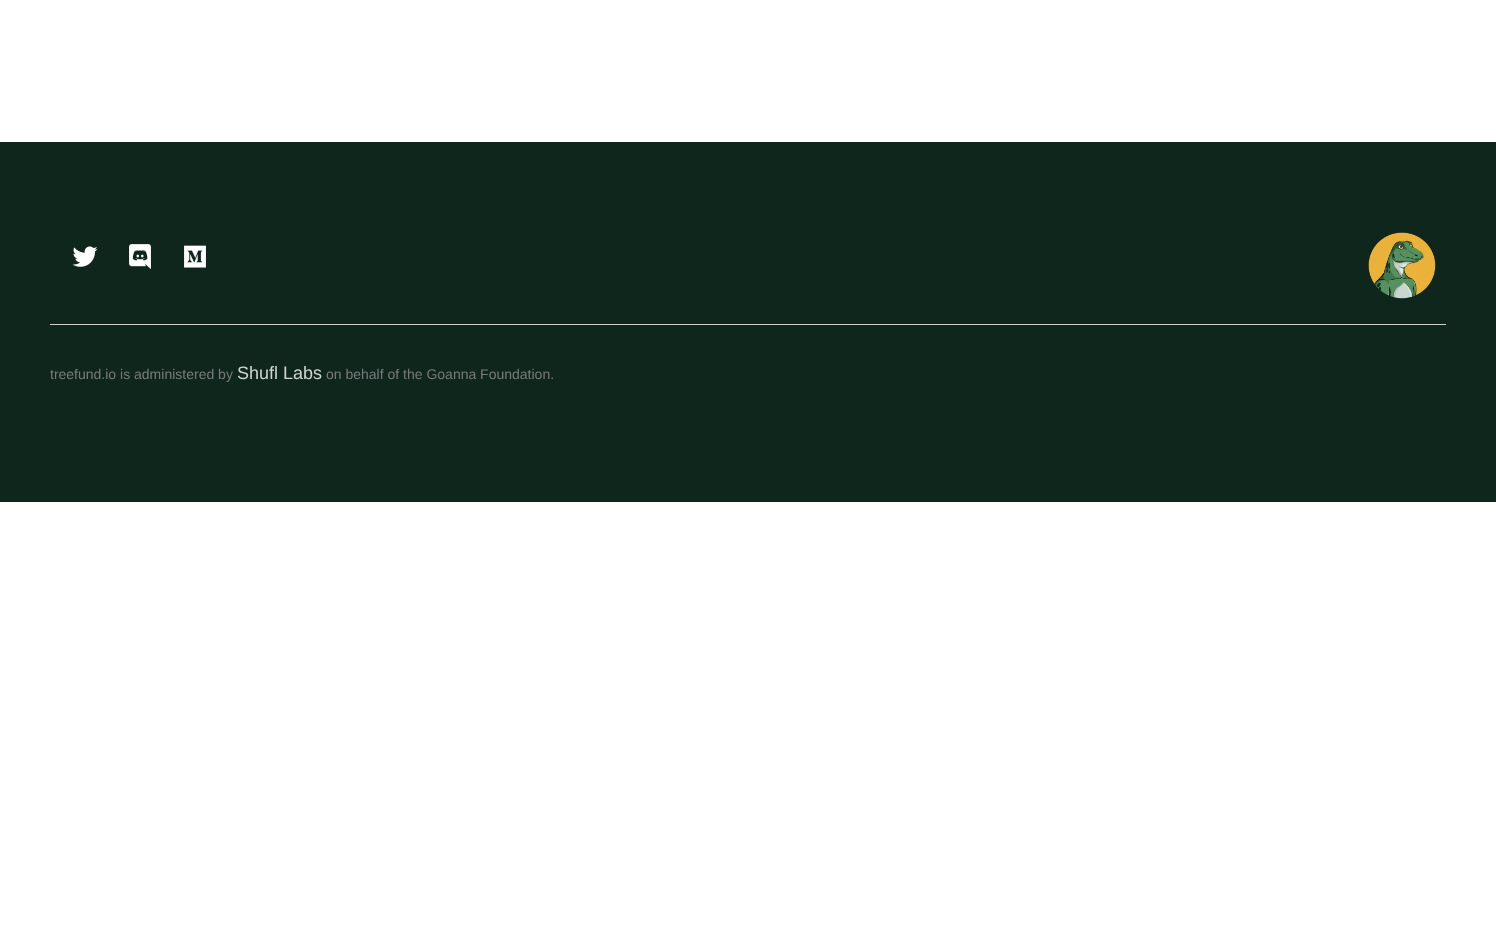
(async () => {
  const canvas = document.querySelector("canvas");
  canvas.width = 1496;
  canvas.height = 939;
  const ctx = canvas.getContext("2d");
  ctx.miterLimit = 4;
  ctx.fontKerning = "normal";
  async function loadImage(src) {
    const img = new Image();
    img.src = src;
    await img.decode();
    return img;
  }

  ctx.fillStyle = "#ffffff";
  ctx.fillRect(0, 0, 1496, 939);
  ctx.fillStyle = "#0f261d";
  ctx.fillRect(0, 142, 1496, 360);
  ctx.drawImage(await loadImage("img/1.png"), 72, 246, 26, 21);
  ctx.drawImage(await loadImage("img/2.png"), 129, 244, 22, 25);
  ctx.drawImage(await loadImage("img/3.png"), 184, 245, 22, 23);
  ctx.drawImage(await loadImage("img/4.png"), 1368, 232, 68, 67);
  ctx.fillStyle = "#cfd5cd";
  ctx.fillRect(50, 324, 1396, 1);
  ctx.font = "14px Liberation Sans";
  ctx.fillStyle = "#7a7a7a";
  ctx.fillText("treefund.io is administered by", 50, 379);
  ctx.font = "18px Liberation Sans";
  ctx.fillStyle = "#cfd5cd";
  ctx.fillText("Shufl Labs", 237, 379);
  ctx.font = "14px Liberation Sans";
  ctx.fillStyle = "#7a7a7a";
  ctx.fillText("on behalf of the Goanna Foundation.", 326, 379);
})();
